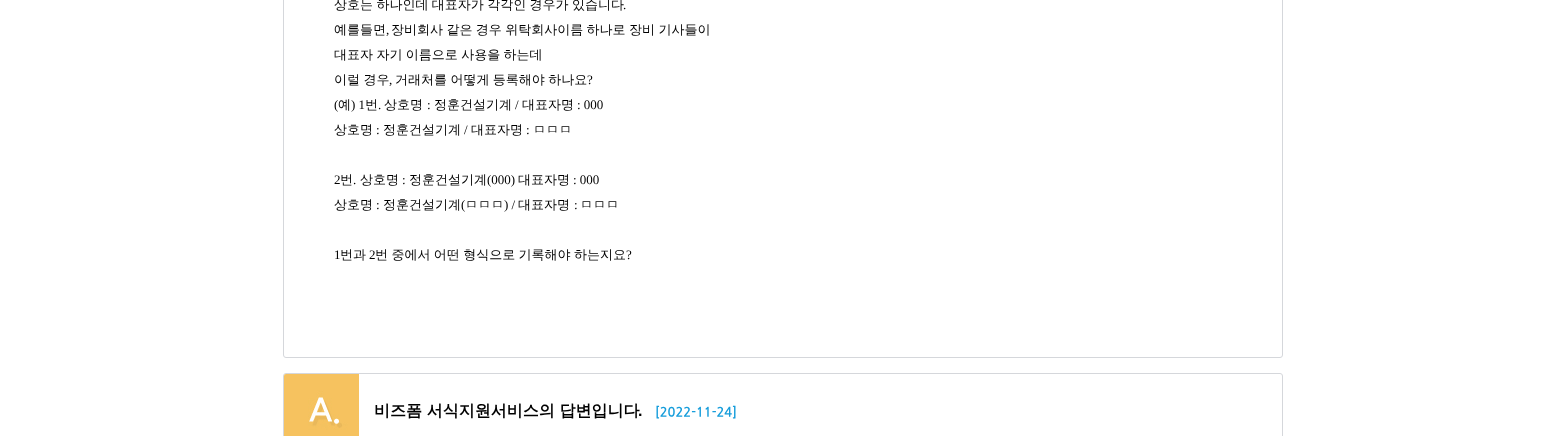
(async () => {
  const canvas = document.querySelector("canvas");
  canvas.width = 1565;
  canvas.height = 436;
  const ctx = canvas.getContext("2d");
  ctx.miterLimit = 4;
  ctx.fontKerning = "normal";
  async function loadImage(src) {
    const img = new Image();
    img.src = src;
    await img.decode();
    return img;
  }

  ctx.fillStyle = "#ffffff";
  ctx.fillRect(0, 0, 1565, 436);
  ctx.beginPath();
  ctx.roundRect(283.5, -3.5, 999, 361, 2.5);
  ctx.strokeStyle = "#d5d7db";
  ctx.stroke();
  ctx.beginPath();
  ctx.roundRect(283.5, 373.5, 999, 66, 2.5);
  ctx.stroke();
  ctx.drawImage(await loadImage("img/1.png"), 284, 374, 75, 62);
  ctx.wordSpacing = "-0.5px";
  ctx.font = "500 13px WenQuanYi Zen Hei";
  ctx.fillStyle = "#000000";
  ctx.fillText("상호는 하나인데 대표자가 각각인 경우가 있습니다", 334, 9);
  ctx.wordSpacing = "0px";
  ctx.font = "13px Liberation Serif";
  ctx.fillText(".", 623, 9);
  ctx.font = "500 13px WenQuanYi Zen Hei";
  ctx.fillText("예를들면", 334, 34);
  ctx.font = "13px Liberation Serif";
  ctx.fillText(",", 386, 34);
  ctx.wordSpacing = "-0.5px";
  ctx.font = "500 13px WenQuanYi Zen Hei";
  for (const [text, x, y] of [
    ["장비회사 같은 경우 위탁회사이름 하나로 장비 기사들이", 391, 34],
    ["대표자 자기 이름으로 사용을 하는데", 334, 59],
    ["이럴 경우", 334, 84],
  ]) {
    ctx.fillText(text, x, y);
  }
  ctx.wordSpacing = "0px";
  ctx.font = "13px Liberation Serif";
  ctx.fillText(",", 389, 84);
  ctx.wordSpacing = "-0.5px";
  ctx.font = "500 13px WenQuanYi Zen Hei";
  ctx.fillText("거래처를 어떻게 등록해야 하나요", 395, 84);
  ctx.wordSpacing = "0px";
  ctx.font = "13px Liberation Serif";
  ctx.fillText("?", 587, 84);
  ctx.fillText("(", 334, 109);
  ctx.font = "500 13px WenQuanYi Zen Hei";
  ctx.fillText("예", 338, 109);
  ctx.font = "13px Liberation Serif";
  ctx.fillText(") 1", 351, 109);
  ctx.font = "500 13px WenQuanYi Zen Hei";
  ctx.fillText("번", 365, 109);
  ctx.font = "13px Liberation Serif";
  ctx.fillText(".", 378, 109);
  ctx.font = "500 13px WenQuanYi Zen Hei";
  ctx.fillText("상호명", 384, 109);
  ctx.font = "13px Liberation Serif";
  ctx.fillText(":", 427, 109);
  ctx.font = "500 13px WenQuanYi Zen Hei";
  ctx.fillText("정훈건설기계", 434, 109);
  ctx.font = "13px Liberation Serif";
  ctx.fillText("/", 515, 109);
  ctx.font = "500 13px WenQuanYi Zen Hei";
  ctx.fillText("대표자명", 522, 109);
  ctx.font = "13px Liberation Serif";
  ctx.fillText(": 000", 577, 109);
  ctx.font = "500 13px WenQuanYi Zen Hei";
  ctx.fillText("상호명", 334, 134);
  ctx.font = "13px Liberation Serif";
  ctx.fillText(":", 376, 134);
  ctx.font = "500 13px WenQuanYi Zen Hei";
  ctx.fillText("정훈건설기계", 383, 134);
  ctx.font = "13px Liberation Serif";
  ctx.fillText("/", 464, 134);
  ctx.font = "500 13px WenQuanYi Zen Hei";
  ctx.fillText("대표자명", 471, 134);
  ctx.font = "13px Liberation Serif";
  ctx.fillText(":", 526, 134);
  ctx.font = "500 13px WenQuanYi Zen Hei";
  ctx.fillText("ㅁㅁㅁ", 533, 134);
  ctx.font = "13px Liberation Serif";
  ctx.fillText("2", 334, 184);
  ctx.font = "500 13px WenQuanYi Zen Hei";
  ctx.fillText("번", 340, 184);
  ctx.font = "13px Liberation Serif";
  ctx.fillText(".", 353, 184);
  ctx.font = "500 13px WenQuanYi Zen Hei";
  ctx.fillText("상호명", 360, 184);
  ctx.font = "13px Liberation Serif";
  ctx.fillText(":", 402, 184);
  ctx.font = "500 13px WenQuanYi Zen Hei";
  ctx.fillText("정훈건설기계", 409, 184);
  ctx.font = "13px Liberation Serif";
  ctx.fillText("(000)", 487, 184);
  ctx.font = "500 13px WenQuanYi Zen Hei";
  ctx.fillText("대표자명", 518, 184);
  ctx.font = "13px Liberation Serif";
  ctx.fillText(": 000", 573, 184);
  ctx.font = "500 13px WenQuanYi Zen Hei";
  ctx.fillText("상호명", 334, 209);
  ctx.font = "13px Liberation Serif";
  ctx.fillText(":", 376, 209);
  ctx.font = "500 13px WenQuanYi Zen Hei";
  ctx.fillText("정훈건설기계", 383, 209);
  ctx.font = "13px Liberation Serif";
  ctx.fillText("(", 461, 209);
  ctx.font = "500 13px WenQuanYi Zen Hei";
  ctx.fillText("ㅁㅁㅁ", 465, 209);
  ctx.font = "13px Liberation Serif";
  ctx.fillText(") /", 504, 209);
  ctx.font = "500 13px WenQuanYi Zen Hei";
  ctx.fillText("대표자명", 518, 209);
  ctx.font = "13px Liberation Serif";
  ctx.fillText(":", 574, 209);
  ctx.font = "500 13px WenQuanYi Zen Hei";
  ctx.fillText("ㅁㅁㅁ", 580, 209);
  ctx.font = "13px Liberation Serif";
  ctx.fillText("1", 334, 259);
  ctx.font = "500 13px WenQuanYi Zen Hei";
  ctx.fillText("번과", 340, 259);
  ctx.font = "13px Liberation Serif";
  ctx.fillText("2", 369, 259);
  ctx.wordSpacing = "-0.5px";
  ctx.font = "500 13px WenQuanYi Zen Hei";
  ctx.fillText("번 중에서 어떤 형식으로 기록해야 하는지요", 375, 259);
  ctx.wordSpacing = "0px";
  ctx.font = "13px Liberation Serif";
  ctx.fillText("?", 626, 259);
  ctx.font = "bold 16px WenQuanYi Zen Hei";
  ctx.fillText("비즈폼 서식지원서비스의 답변입니다", 374, 416);
  ctx.font = "bold 16px Liberation Sans";
  ctx.fillText(".", 638, 416);
  ctx.font = "bold 13px NanumGothic";
  ctx.fillStyle = "#169ddb";
  ctx.fillText("[2022-11-24]", 655, 416);
})();
